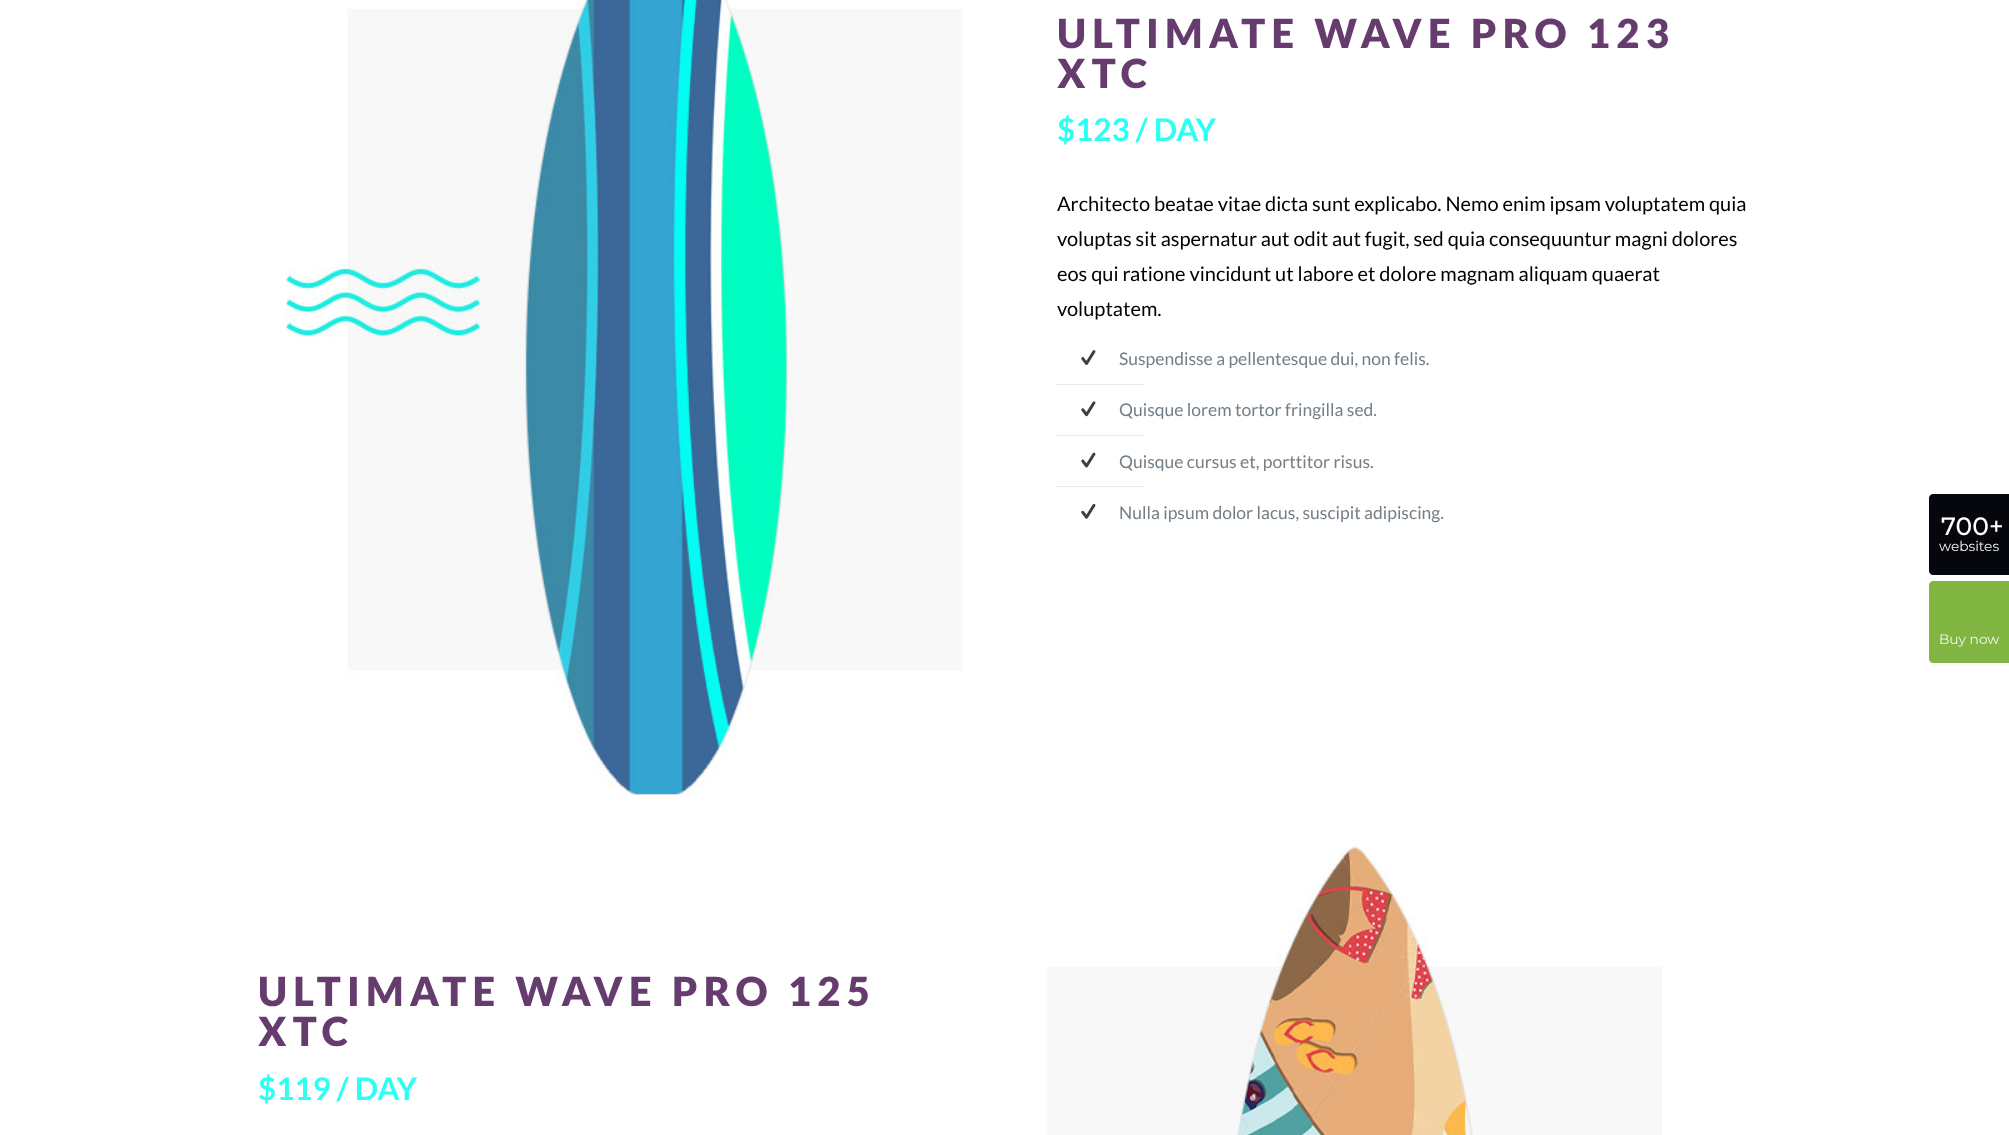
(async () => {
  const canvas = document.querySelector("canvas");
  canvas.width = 2009;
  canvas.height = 1135;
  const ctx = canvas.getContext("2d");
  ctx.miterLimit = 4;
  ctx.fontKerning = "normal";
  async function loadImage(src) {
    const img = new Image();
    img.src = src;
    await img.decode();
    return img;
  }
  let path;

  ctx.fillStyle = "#ffffff";
  ctx.fillRect(0, 0, 2009, 1135);
  ctx.drawImage(await loadImage("img/1.png"), 286, 0, 677, 795);
  ctx.drawImage(await loadImage("img/2.png"), 1081, 350, 15, 15);
  ctx.fillStyle = "#ebebeb";
  ctx.fillRect(1056, 384, 88, 1);
  ctx.drawImage(await loadImage("img/3.png"), 1081, 401, 15, 16);
  ctx.fillRect(1056, 435, 88, 1);
  ctx.drawImage(await loadImage("img/4.png"), 1081, 452, 15, 16);
  ctx.fillRect(1056, 486, 88, 1);
  ctx.drawImage(await loadImage("img/5.png"), 1081, 503, 15, 16);
  ctx.drawImage(await loadImage("img/6.png"), 1047, 846, 615, 289);
  ctx.fillStyle = "#06070c";
  path = new Path2D("M1933 494H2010V575H1933C1931 575 1929 573 1929 571V498C1929 496 1931 494 1933 494Z");
  ctx.fill(path);
  ctx.fillStyle = "#80b541";
  path = new Path2D("M1933 581H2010V663H1933C1931 663 1929 661 1929 659V585C1929 583 1931 581 1933 581Z");
  ctx.fill(path);
  ctx.letterSpacing = "6.25px";
  ctx.font = "900 40px Lato";
  ctx.fillStyle = "#663c6f";
  ctx.fillText("ULTIMATE WAVE PRO 123", 1057, 48);
  ctx.fillText("XTC", 1057, 88);
  ctx.letterSpacing = "0px";
  ctx.font = "bold 31.25px Lato";
  ctx.fillStyle = "#2dfff3";
  ctx.fillText("$123 / DAY", 1057, 141);
  ctx.font = "20px Lato";
  ctx.fillStyle = "#000000";
  for (const [text, x, y] of [
    ["Architecto beatae vitae dicta sunt explicabo. Nemo enim ipsam voluptatem quia", 1057, 211],
    ["voluptas sit aspernatur aut odit aut fugit, sed quia consequuntur magni dolores", 1057, 246],
    ["eos qui ratione vincidunt ut labore et dolore magnam aliquam quaerat", 1057, 281],
    ["voluptatem.", 1057, 316],
  ]) {
    ctx.fillText(text, x, y);
  }
  ctx.font = "17.5px Lato";
  ctx.fillStyle = "#737e86";
  for (const [text, x, y] of [
    ["Suspendisse a pellentesque dui, non felis.", 1119, 365],
    ["Quisque lorem tortor fringilla sed.", 1119, 416],
    ["Quisque cursus et, porttitor risus.", 1119, 468],
    ["Nulla ipsum dolor lacus, suscipit adipiscing.", 1119, 519],
  ]) {
    ctx.fillText(text, x, y);
  }
  ctx.letterSpacing = "6.25px";
  ctx.font = "900 40px Lato";
  ctx.fillStyle = "#663c6f";
  ctx.fillText("ULTIMATE WAVE PRO 125", 258, 1006);
  ctx.fillText("XTC", 258, 1046);
  ctx.letterSpacing = "0px";
  ctx.font = "bold 31.25px Lato";
  ctx.fillStyle = "#2dfff3";
  ctx.fillText("$119 / DAY", 258, 1100);
  ctx.font = "500 25px Montserrat";
  ctx.fillStyle = "#ffffff";
  ctx.fillText("700+", 1941, 535);
  ctx.font = "13.75px Montserrat";
  ctx.fillStyle = "#f3f5f2";
  ctx.fillText("websites", 1939, 551);
  ctx.fillText("Buy now", 1939, 644);
})();
